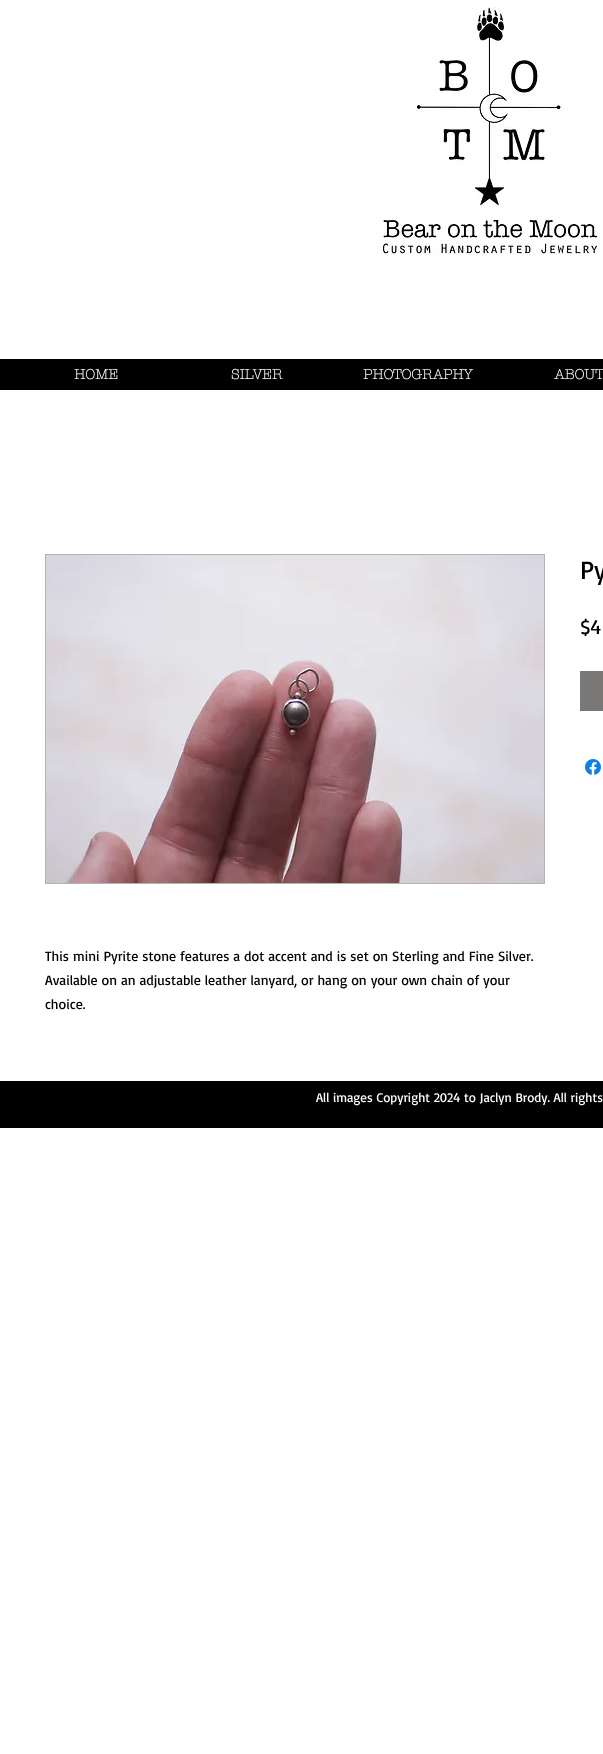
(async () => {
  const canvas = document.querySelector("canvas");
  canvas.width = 603;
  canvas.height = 1754;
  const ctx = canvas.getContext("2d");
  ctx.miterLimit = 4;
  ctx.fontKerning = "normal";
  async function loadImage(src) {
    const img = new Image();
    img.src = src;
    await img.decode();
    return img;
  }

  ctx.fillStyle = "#ffffff";
  ctx.fillRect(0, 0, 603, 1754);
  ctx.drawImage(await loadImage("img/1.png"), 380, 7, 220, 248);
  ctx.fillStyle = "#000000";
  ctx.fillRect(0, 359, 603, 31);
  ctx.fillStyle = "#7a7777";
  ctx.fillRect(580, 671, 23, 40);
  ctx.drawImage(await loadImage("img/2.png"), 585, 759, 16, 16);
  ctx.strokeStyle = "#b7b2b2";
  ctx.strokeRect(45.5, 554.5, 499, 329);
  ctx.drawImage(await loadImage("img/3.png"), 46, 555, 498, 328);
  ctx.fillStyle = "#000000";
  ctx.fillRect(0, 1081, 603, 47);
  ctx.font = "bold 14px 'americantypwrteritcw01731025'";
  ctx.fillStyle = "#ffffff";
  for (const [text, x, y] of [
    ["HOME", 74, 379],
    ["SILVER", 231, 379],
    ["PHOTOGRAPHY", 363, 379],
    ["ABOUT", 554, 379],
  ]) {
    ctx.fillText(text, x, y);
  }
  ctx.font = "26px Basic";
  ctx.fillStyle = "#000000";
  ctx.fillText("Py", 580, 579);
  ctx.font = "20px Basic";
  ctx.fillText("$4", 580, 634);
  ctx.font = "14px Basic";
  for (const [text, x, y] of [
    ["This mini Pyrite stone features a dot accent and is set on Sterling and Fine Silver.", 45, 961],
    ["Available on an adjustable leather lanyard, or hang on your own chain of your", 45, 985],
    ["choice.", 45, 1009],
  ]) {
    ctx.fillText(text, x, y);
  }
  ctx.font = "13px Basic";
  ctx.fillStyle = "#ffffff";
  ctx.fillText("All images Copyright 2024", 316, 1102);
  ctx.fillText("to Jaclyn Brody. All rights", 464, 1102);
})();
